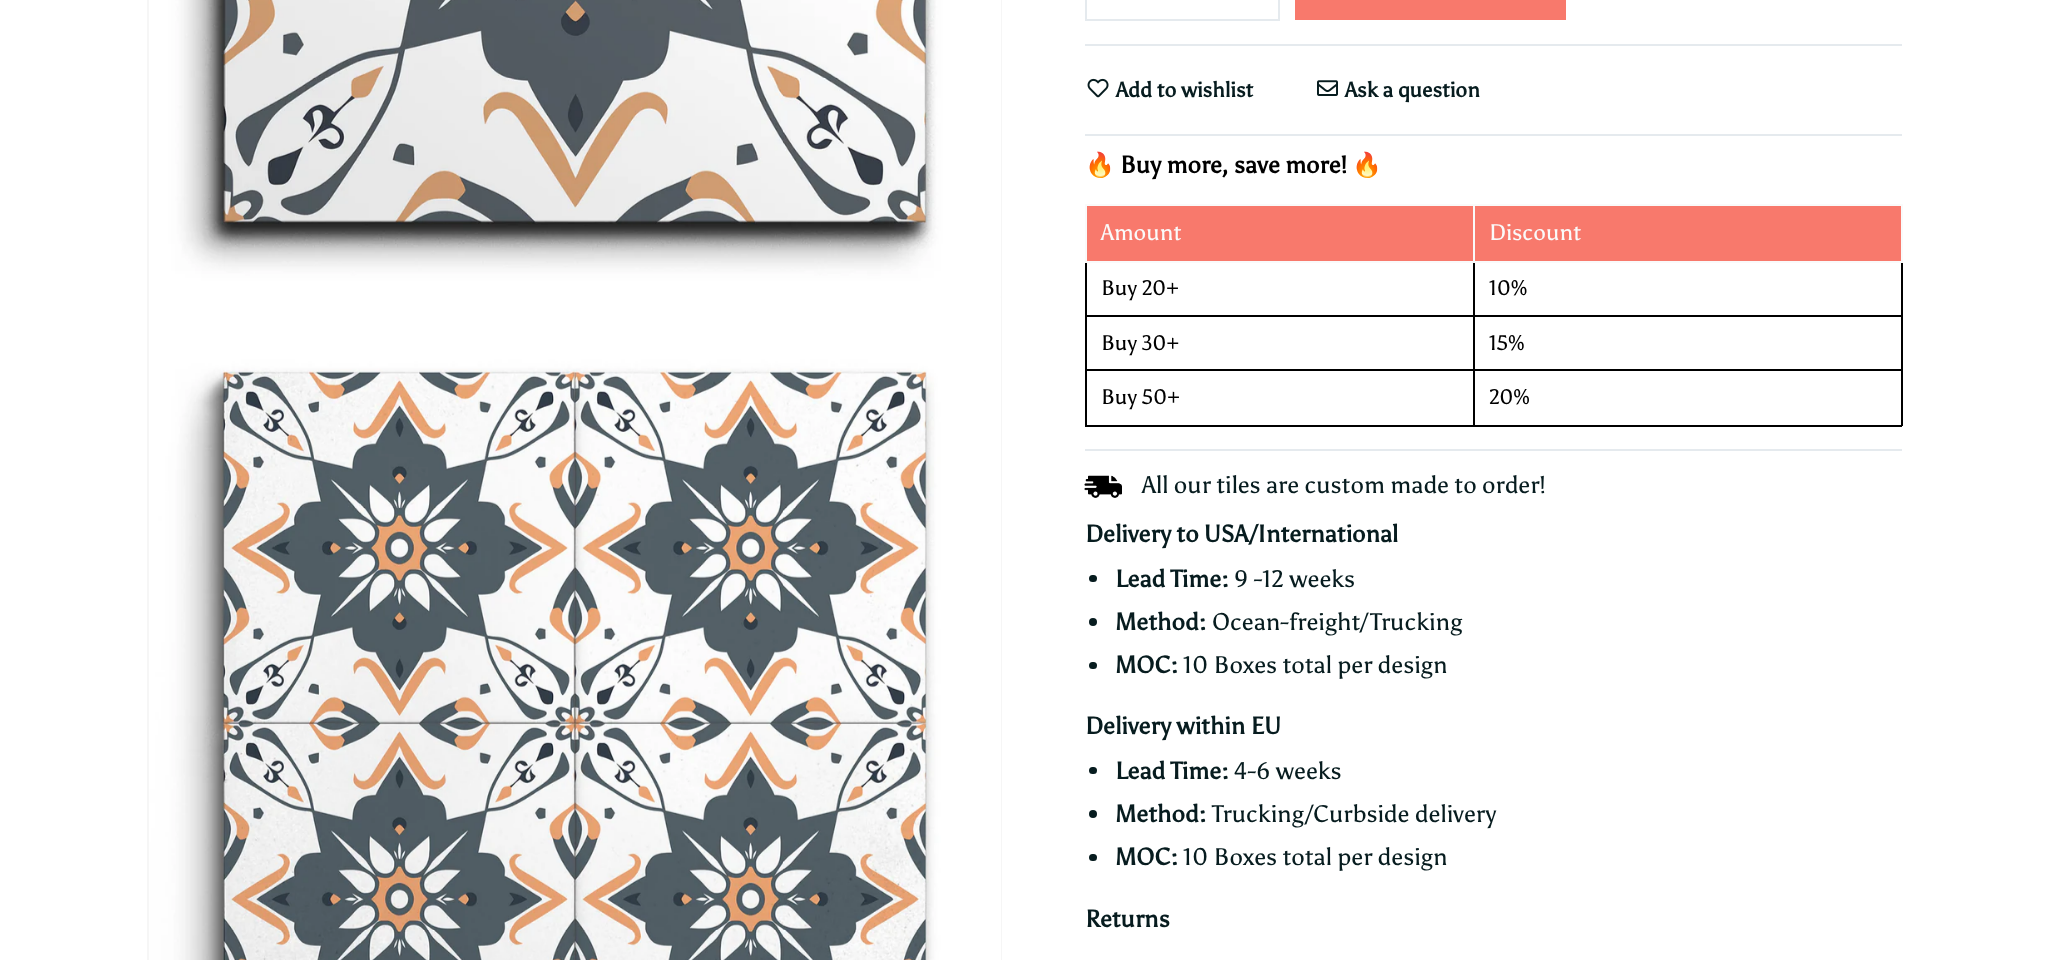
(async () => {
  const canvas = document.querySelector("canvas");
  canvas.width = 2048;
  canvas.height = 960;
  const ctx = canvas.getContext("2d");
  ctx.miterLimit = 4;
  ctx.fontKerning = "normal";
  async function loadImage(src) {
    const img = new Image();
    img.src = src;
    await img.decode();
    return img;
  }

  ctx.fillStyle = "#ffffff";
  ctx.fillRect(0, 0, 2048, 960);
  ctx.strokeStyle = "#f6f6f6";
  ctx.lineWidth = 2;
  ctx.strokeRect(148, -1, 853, 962);
  ctx.drawImage(await loadImage("img/1.png"), 149, 0, 852, 297);
  ctx.drawImage(await loadImage("img/2.png"), 149, 297, 852, 663);
  ctx.strokeStyle = "#e5eaee";
  ctx.strokeRect(1086, -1, 193, 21);
  ctx.fillStyle = "#f8796c";
  ctx.fillRect(1295, 0, 271, 20);
  ctx.fillStyle = "#e5eaee";
  ctx.fillRect(1085, 44, 817, 2);
  ctx.drawImage(await loadImage("img/3.png"), 1087, 78, 22, 20);
  ctx.drawImage(await loadImage("img/4.png"), 1317, 80, 21, 16);
  for (const [x, y, w, h, color] of [
    [1085, 134, 817, 2, "#e5eaee"],
    [1087, 206, 386, 55, "#f8796c"],
    [1473, 204, 429, 2, "#fafafa"],
    [1473, 315, 429, 2, "#000000"],
    [1473, 369, 429, 2, "#000000"],
    [1901, 369, 2, 57, "#000000"],
    [1901, 261, 2, 110, "#000000"],
    [1901, 204, 2, 59, "#fafafa"],
    [1473, 425, 429, 2, "#000000"],
    [1473, 369, 2, 57, "#000000"],
    [1085, 369, 390, 2, "#000000"],
    [1473, 315, 2, 56, "#000000"],
    [1085, 315, 390, 2, "#000000"],
    [1473, 261, 2, 56, "#000000"],
    [1473, 261, 429, 2, "#fafafa"],
    [1473, 204, 2, 59, "#fafafa"],
    [1085, 204, 390, 2, "#fafafa"],
    [1085, 425, 390, 2, "#000000"],
    [1085, 369, 2, 57, "#000000"],
    [1085, 261, 2, 110, "#000000"],
    [1085, 261, 390, 2, "#fafafa"],
    [1085, 204, 2, 59, "#fafafa"],
    [1475, 206, 426, 55, "#f8796c"],
    [1085, 449, 817, 2, "#e5eaee"],
  ]) {
    ctx.fillStyle = color;
    ctx.fillRect(x, y, w, h);
  }
  ctx.drawImage(await loadImage("img/5.png"), 1084, 475, 38, 23);
  ctx.fillStyle = "#071c1f";
  ctx.beginPath();
  ctx.roundRect(1089, 575, 8, 7, 3.5);
  ctx.fill();
  ctx.beginPath();
  ctx.arc(1093, 622, 4, 0, Math.PI * 2);
  ctx.fill();
  ctx.beginPath();
  ctx.roundRect(1089, 662, 8, 7, 3.5);
  ctx.fill();
  ctx.beginPath();
  ctx.roundRect(1089, 767, 8, 7, 3.5);
  ctx.fill();
  ctx.beginPath();
  ctx.arc(1093, 814, 4, 0, Math.PI * 2);
  ctx.fill();
  ctx.beginPath();
  ctx.roundRect(1089, 854, 8, 7, 3.5);
  ctx.fill();
  ctx.font = "bold 21px Asul";
  ctx.fillText("Add to wishlist", 1116, 97);
  ctx.fillText("Ask a question", 1345, 97);
  ctx.font = "bold 24px Noto Color Emoji";
  ctx.fillStyle = "#000000";
  ctx.fillText("🔥", 1085, 173);
  ctx.font = "bold 24px Asul";
  ctx.fillText("Buy more, save more!", 1120, 173);
  ctx.font = "bold 24px Noto Color Emoji";
  ctx.fillText("🔥", 1352, 173);
  ctx.font = "22.5px Asul";
  ctx.fillStyle = "#fafafa";
  ctx.fillText("Amount", 1101, 240);
  ctx.fillText("Discount", 1489, 240);
  ctx.font = "21px Asul";
  ctx.fillStyle = "#000000";
  for (const [text, x, y] of [
    ["Buy 20+", 1101, 295],
    ["10%", 1489, 295],
    ["Buy 30+", 1101, 350],
    ["15%", 1489, 350],
    ["Buy 50+", 1101, 404],
    ["20%", 1489, 404],
  ]) {
    ctx.fillText(text, x, y);
  }
  ctx.font = "24px Asul";
  ctx.fillStyle = "#071c1f";
  ctx.fillText("All our tiles are custom made to order!", 1142, 493);
  ctx.font = "bold 24px Asul";
  ctx.fillText("Delivery to USA/International", 1085, 542);
  ctx.fillText("Lead Time:", 1115, 587);
  ctx.font = "24px Asul";
  ctx.fillText("9 -12 weeks", 1234, 587);
  ctx.font = "bold 24px Asul";
  ctx.fillText("Method:", 1115, 630);
  ctx.font = "24px Asul";
  ctx.fillText("Ocean-freight/Trucking", 1212, 630);
  ctx.font = "bold 24px Asul";
  ctx.fillText("MOC:", 1115, 673);
  ctx.font = "24px Asul";
  ctx.fillText("10 Boxes total per design", 1183, 673);
  ctx.font = "bold 24px Asul";
  ctx.fillText("Delivery within EU", 1085, 734);
  ctx.fillText("Lead Time:", 1115, 779);
  ctx.font = "24px Asul";
  ctx.fillText("4-6 weeks", 1234, 779);
  ctx.font = "bold 24px Asul";
  ctx.fillText("Method:", 1115, 822);
  ctx.font = "24px Asul";
  ctx.fillText("Trucking/Curbside delivery", 1212, 822);
  ctx.font = "bold 24px Asul";
  ctx.fillText("MOC:", 1115, 865);
  ctx.font = "24px Asul";
  ctx.fillText("10 Boxes total per design", 1183, 865);
  ctx.font = "bold 24px Asul";
  ctx.fillText("Returns", 1085, 927);
})();
